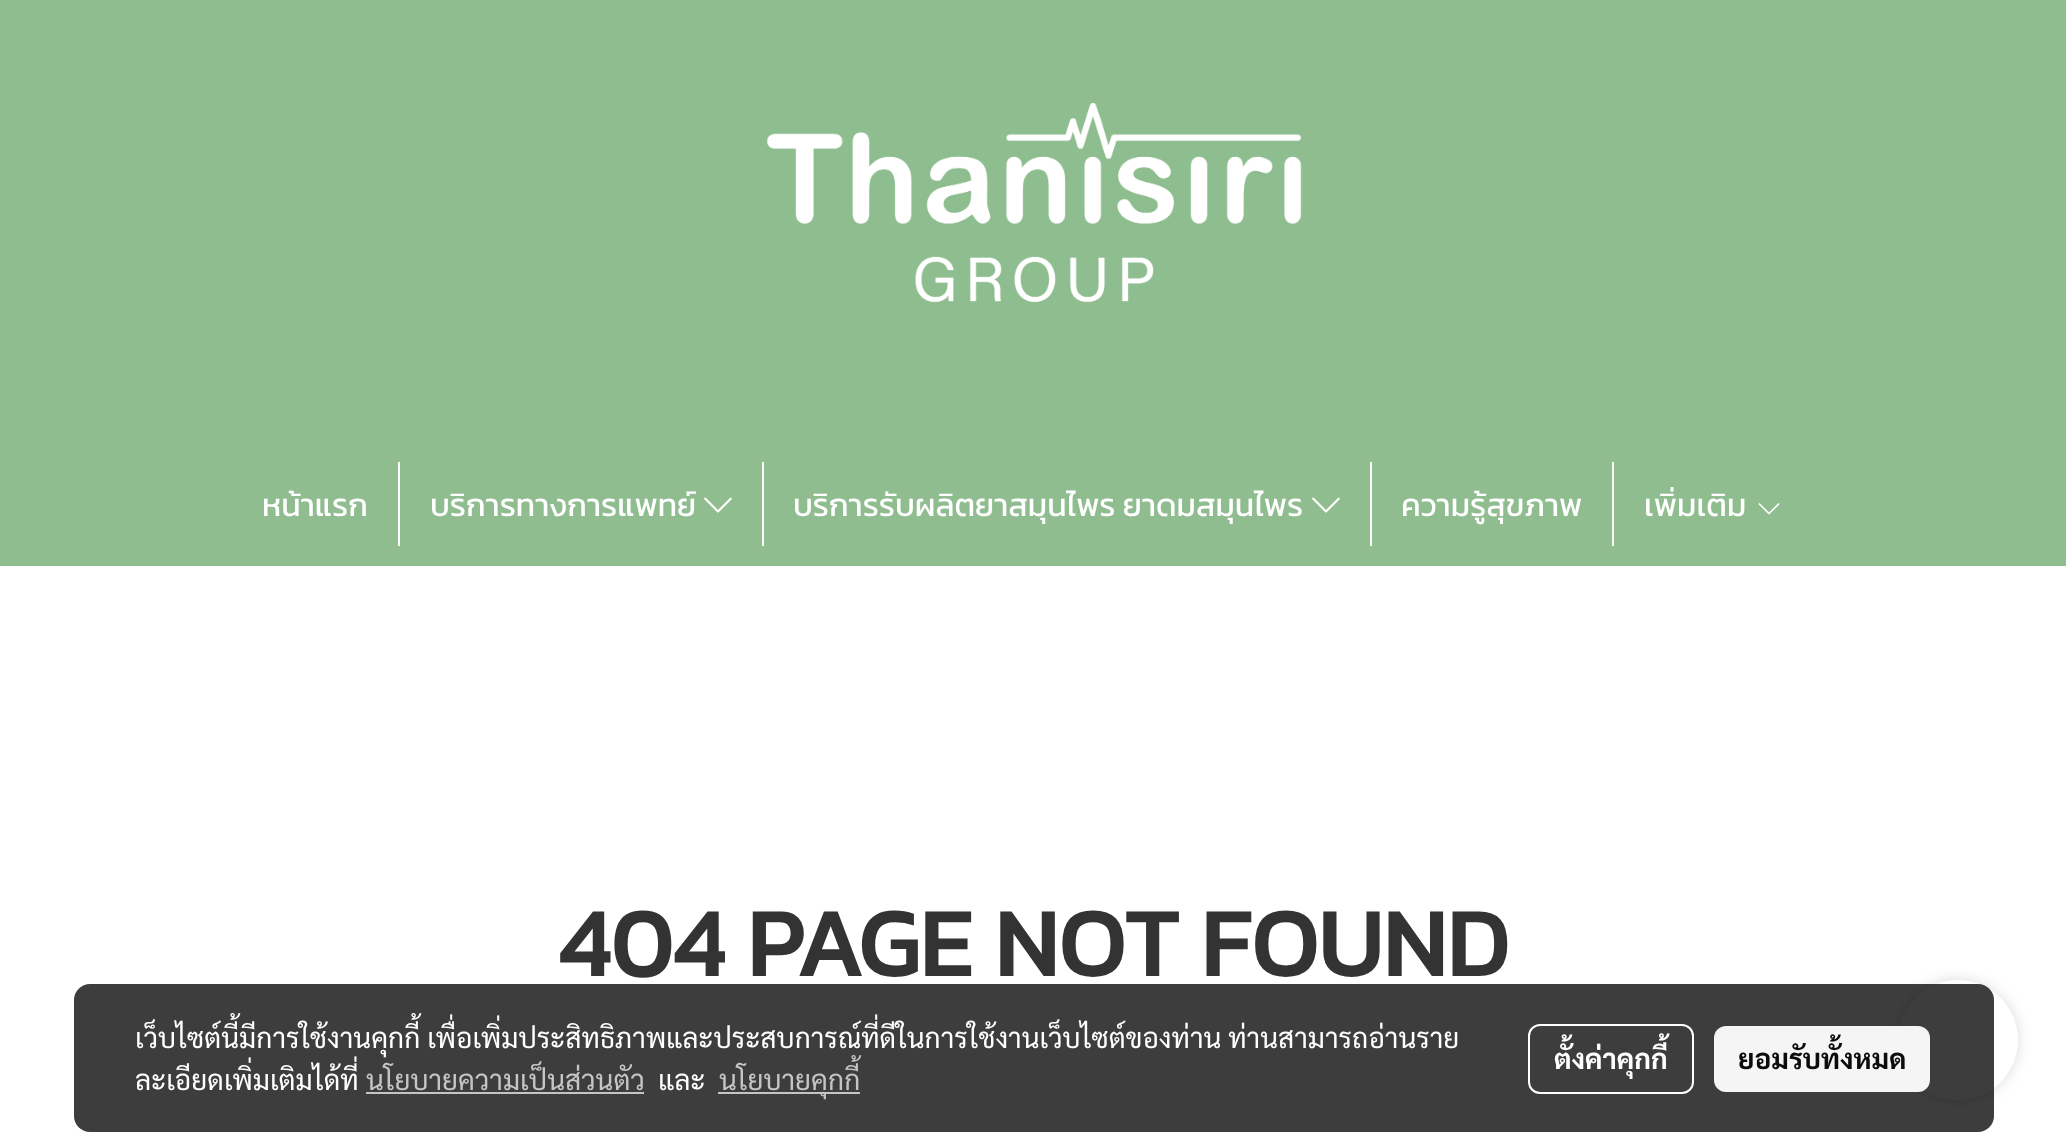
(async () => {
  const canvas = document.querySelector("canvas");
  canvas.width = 2066;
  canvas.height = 1148;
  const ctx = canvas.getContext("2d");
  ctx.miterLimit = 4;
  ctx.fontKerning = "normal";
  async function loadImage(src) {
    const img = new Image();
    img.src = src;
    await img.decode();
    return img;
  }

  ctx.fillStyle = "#ffffff";
  ctx.fillRect(0, 0, 2066, 1148);
  ctx.fillStyle = "#8fbd90";
  ctx.fillRect(0, 0, 2066, 566);
  ctx.drawImage(await loadImage("img/1.png"), 766, 102, 536, 201);
  ctx.fillStyle = "#ffffff";
  ctx.fillRect(398, 462, 2, 84);
  ctx.fillRect(762, 462, 2, 84);
  ctx.drawImage(await loadImage("img/2.png"), 704, 497, 28, 16);
  ctx.fillRect(1370, 462, 2, 84);
  ctx.drawImage(await loadImage("img/2.png"), 1312, 497, 28, 16);
  ctx.fillRect(1612, 462, 2, 84);
  ctx.drawImage(await loadImage("img/3.png"), 1758, 503, 22, 12);
  ctx.fillStyle = "rgba(0, 0, 0, 0.14)";
  ctx.filter = "blur(7px)";
  ctx.beginPath();
  ctx.roundRect(1898, 980, 120, 120, 60);
  ctx.fill();
  ctx.filter = "none";
  ctx.fillStyle = "#ffffff";
  ctx.beginPath();
  ctx.arc(1958, 1040, 60, 0, Math.PI * 2);
  ctx.fill();
  ctx.fillStyle = "rgba(0, 0, 0, 0.76)";
  ctx.beginPath();
  ctx.roundRect(74, 984, 1920, 148, 16);
  ctx.fill();
  ctx.fillStyle = "#c5c5c5";
  ctx.fillRect(366, 1092, 278, 2);
  ctx.fillRect(718, 1092, 142, 2);
  ctx.beginPath();
  ctx.roundRect(1529, 1025, 164, 68, 11);
  ctx.strokeStyle = "#ffffff";
  ctx.lineWidth = 2;
  ctx.stroke();
  ctx.fillStyle = "rgba(255, 255, 255, 0.95)";
  ctx.beginPath();
  ctx.roundRect(1714, 1026, 216, 66, 12);
  ctx.fill();
  ctx.font = "32px Kanit";
  ctx.fillStyle = "#ffffff";
  for (const [text, x, y] of [
    ["หน้าแรก", 262, 516],
    ["บริการทางการแพทย์", 430, 516],
    ["บริการรับผลิตยาสมุนไพร ยาดมสมุนไพร", 793, 516],
    ["ความรู้สุขภาพ", 1401, 516],
    ["เพิ่มเติม", 1644, 516],
  ]) {
    ctx.fillText(text, x, y);
  }
  ctx.font = "bold 96px Kanit";
  ctx.fillStyle = "#333333";
  ctx.fillText("404 PAGE NOT FOUND", 558, 976);
  ctx.font = "28px Sarabun";
  ctx.fillStyle = "#ffffff";
  ctx.fillText("เว็บไซต์นี้มีการใช้งานคุกกี้ เพื่อเพิ่มประสิทธิภาพและประสบการณ์ที่ดีในการใช้งานเว็บไซต์ของท่าน ท่านสามารถอ่านราย", 135, 1048);
  ctx.fillText("ละเอียดเพิ่มเติมได้ที่", 135, 1090);
  ctx.fillStyle = "#c5c5c5";
  ctx.fillText("นโยบายความเป็นส่วนตัว", 366, 1090);
  ctx.fillStyle = "#ffffff";
  ctx.fillText("และ", 658, 1090);
  ctx.fillStyle = "#c5c5c5";
  ctx.fillText("นโยบายคุกกี้", 719, 1090);
  ctx.font = "bold 28px Sarabun";
  ctx.fillStyle = "#ffffff";
  ctx.fillText("ตั้งค่าคุกกี้", 1554, 1069);
  ctx.fillStyle = "#0c0c0c";
  ctx.fillText("ยอมรับทั้งหมด", 1738, 1069);
})();
